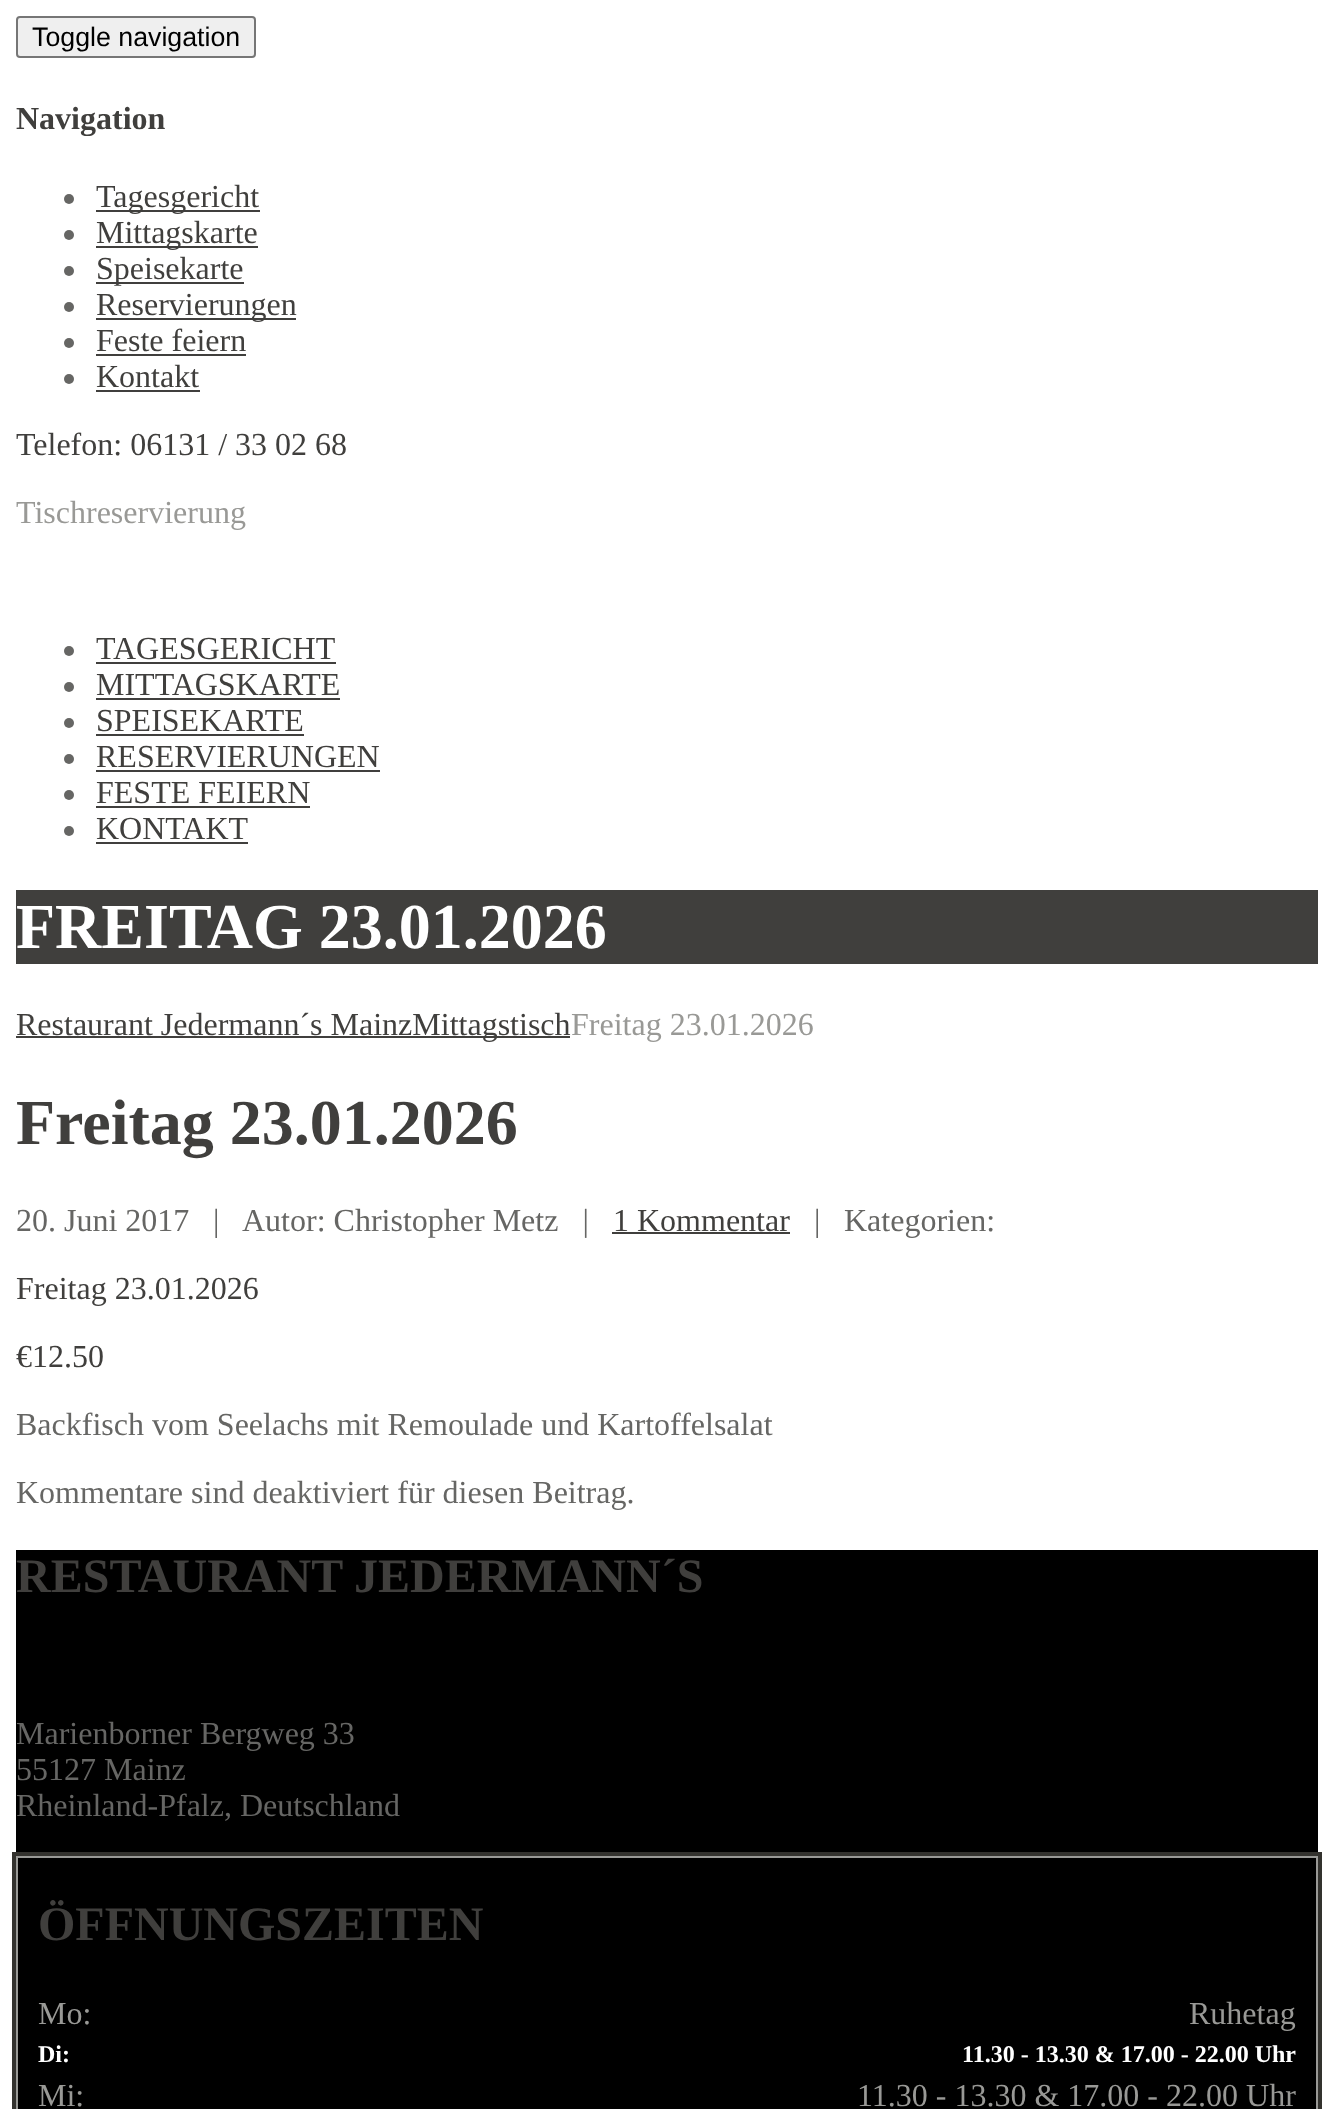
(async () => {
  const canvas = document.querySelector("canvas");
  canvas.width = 1334;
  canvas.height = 2109;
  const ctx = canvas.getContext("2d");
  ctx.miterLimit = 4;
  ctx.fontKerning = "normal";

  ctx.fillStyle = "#ffffff";
  ctx.fillRect(0, 0, 1334, 2109);
  ctx.fillStyle = "#efefef";
  ctx.beginPath();
  ctx.roundRect(17, 17, 238, 40, 3);
  ctx.fill();
  ctx.strokeStyle = "#767676";
  ctx.lineWidth = 2;
  ctx.stroke();
  ctx.fillStyle = "#666664";
  ctx.beginPath();
  ctx.arc(69, 199, 5, 0, Math.PI * 2);
  ctx.fill();
  ctx.fillStyle = "#403f3d";
  ctx.fillRect(96, 210, 164, 2);
  ctx.fillStyle = "#666664";
  ctx.beginPath();
  ctx.arc(69, 235, 5, 0, Math.PI * 2);
  ctx.fill();
  ctx.fillStyle = "#403f3d";
  ctx.fillRect(96, 246, 162, 2);
  ctx.fillStyle = "#666664";
  ctx.beginPath();
  ctx.arc(69, 271, 5, 0, Math.PI * 2);
  ctx.fill();
  ctx.fillStyle = "#403f3d";
  ctx.fillRect(96, 282, 148, 2);
  ctx.fillStyle = "#666664";
  ctx.beginPath();
  ctx.arc(69, 307, 5, 0, Math.PI * 2);
  ctx.fill();
  ctx.fillStyle = "#403f3d";
  ctx.fillRect(96, 318, 200, 2);
  ctx.fillStyle = "#666664";
  ctx.beginPath();
  ctx.arc(69, 343, 5, 0, Math.PI * 2);
  ctx.fill();
  ctx.fillStyle = "#403f3d";
  ctx.fillRect(96, 354, 150, 2);
  ctx.fillStyle = "#666664";
  ctx.beginPath();
  ctx.arc(69, 379, 5, 0, Math.PI * 2);
  ctx.fill();
  ctx.fillStyle = "#403f3d";
  ctx.fillRect(96, 390, 104, 2);
  ctx.fillStyle = "#666664";
  ctx.beginPath();
  ctx.arc(69, 651, 5, 0, Math.PI * 2);
  ctx.fill();
  ctx.fillStyle = "#403f3d";
  ctx.fillRect(96, 662, 240, 2);
  ctx.fillStyle = "#666664";
  ctx.beginPath();
  ctx.arc(69, 687, 5, 0, Math.PI * 2);
  ctx.fill();
  ctx.fillStyle = "#403f3d";
  ctx.fillRect(96, 698, 244, 2);
  ctx.fillStyle = "#666664";
  ctx.beginPath();
  ctx.arc(69, 723, 5, 0, Math.PI * 2);
  ctx.fill();
  ctx.fillStyle = "#403f3d";
  ctx.fillRect(96, 734, 208, 2);
  ctx.fillStyle = "#666664";
  ctx.beginPath();
  ctx.arc(69, 759, 5, 0, Math.PI * 2);
  ctx.fill();
  ctx.fillStyle = "#403f3d";
  ctx.fillRect(96, 770, 284, 2);
  ctx.fillStyle = "#666664";
  ctx.beginPath();
  ctx.arc(69, 795, 5, 0, Math.PI * 2);
  ctx.fill();
  ctx.fillStyle = "#403f3d";
  ctx.fillRect(96, 806, 214, 2);
  ctx.fillStyle = "#666664";
  ctx.beginPath();
  ctx.arc(69, 831, 5, 0, Math.PI * 2);
  ctx.fill();
  for (const [x, y, w, h, color] of [
    [96, 842, 152, 2, "#403f3d"],
    [16, 890, 1302, 74, "#403f3d"],
    [16, 1036, 554, 2, "#403f3d"],
    [612, 1232, 178, 2, "#403f3d"],
    [16, 1550, 1302, 559, "#000000"],
  ]) {
    ctx.fillStyle = color;
    ctx.fillRect(x, y, w, h);
  }
  ctx.strokeStyle = "#33322e";
  ctx.lineWidth = 4;
  ctx.strokeRect(14, 1854, 1306, 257);
  ctx.strokeStyle = "#999996";
  ctx.lineWidth = 2;
  ctx.strokeRect(17, 1857, 1300, 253);
  ctx.font = "26.75px Liberation Sans";
  ctx.fillText("Toggle navigation", 32, 46);
  ctx.font = "bold 32px Liberation Serif";
  ctx.fillStyle = "#403f3d";
  ctx.fillText("Navigation", 16, 129);
  ctx.font = "32px Liberation Serif";
  for (const [text, x, y] of [
    ["Tagesgericht", 96, 207],
    ["Mittagskarte", 96, 243],
    ["Speisekarte", 96, 279],
    ["Reservierungen", 96, 315],
    ["Feste feiern", 96, 351],
    ["Kontakt", 96, 387],
    ["Telefon: 06131 / 33 02 68", 16, 455],
  ]) {
    ctx.fillText(text, x, y);
  }
  ctx.fillStyle = "#999996";
  ctx.fillText("Tischreservierung", 16, 523);
  ctx.fillStyle = "#403f3d";
  for (const [text, x, y] of [
    ["TAGESGERICHT", 96, 659],
    ["MITTAGSKARTE", 96, 695],
    ["SPEISEKARTE", 96, 731],
    ["RESERVIERUNGEN", 96, 767],
    ["FESTE FEIERN", 96, 803],
    ["KONTAKT", 96, 839],
  ]) {
    ctx.fillText(text, x, y);
  }
  ctx.font = "bold 64px Liberation Serif";
  ctx.fillStyle = "#ffffff";
  ctx.fillText("FREITAG 23.01.2026", 16, 948);
  ctx.font = "32px Liberation Serif";
  ctx.fillStyle = "#403f3d";
  ctx.fillText("Restaurant Jedermann´s MainzMittagstisch", 16, 1035);
  ctx.fillStyle = "#999996";
  ctx.fillText("Freitag 23.01.2026", 571, 1035);
  ctx.font = "bold 64px Liberation Serif";
  ctx.fillStyle = "#403f3d";
  ctx.fillText("Freitag 23.01.2026", 16, 1144);
  ctx.font = "32px Liberation Serif";
  ctx.fillStyle = "#666664";
  for (const [text, x, y] of [
    ["20. Juni 2017", 16, 1231],
    ["|", 213, 1231],
    ["Autor: Christopher Metz   |", 242, 1231],
  ]) {
    ctx.fillText(text, x, y);
  }
  ctx.fillStyle = "#403f3d";
  ctx.fillText("1 Kommentar", 613, 1231);
  ctx.fillStyle = "#666664";
  ctx.fillText("|", 814, 1231);
  ctx.fillText("Kategorien:", 844, 1231);
  ctx.fillStyle = "#403f3d";
  ctx.fillText("Freitag 23.01.2026", 16, 1299);
  ctx.fillText("€12.50", 16, 1367);
  ctx.fillStyle = "#666664";
  ctx.fillText("Backfisch vom Seelachs mit Remoulade und Kartoffelsalat", 16, 1435);
  ctx.fillText("Kommentare sind deaktiviert für diesen Beitrag.", 16, 1503);
  ctx.font = "bold 48px Liberation Serif";
  ctx.fillStyle = "#403f3d";
  ctx.fillText("RESTAURANT", 16, 1592);
  ctx.fillText("JEDERMANN´S", 354, 1592);
  ctx.font = "32px Liberation Serif";
  ctx.fillStyle = "#666664";
  for (const [text, x, y] of [
    ["Marienborner Bergweg 33", 16, 1744],
    ["55127 Mainz", 16, 1780],
    ["Rheinland-Pfalz, Deutschland", 16, 1816],
  ]) {
    ctx.fillText(text, x, y);
  }
  ctx.font = "bold 48px Liberation Serif";
  ctx.fillStyle = "#403f3d";
  ctx.fillText("ÖFFNUNGSZEITEN", 38, 1940);
  ctx.font = "32px Liberation Serif";
  ctx.fillStyle = "#999996";
  ctx.fillText("Mo:", 38, 2024);
  ctx.fillText("Ruhetag", 1189, 2024);
  ctx.font = "bold 24px Liberation Serif";
  ctx.fillStyle = "#ffffff";
  ctx.fillText("Di:", 38, 2062);
  ctx.fillText("11.30 - 13.30 & 17.00 - 22.00 Uhr", 962, 2062);
  ctx.font = "32px Liberation Serif";
  ctx.fillStyle = "#999996";
  ctx.fillText("Mi:", 38, 2106);
  ctx.fillText("11.30 - 13.30 & 17.00 - 22.00 Uhr", 857, 2106);
})();
